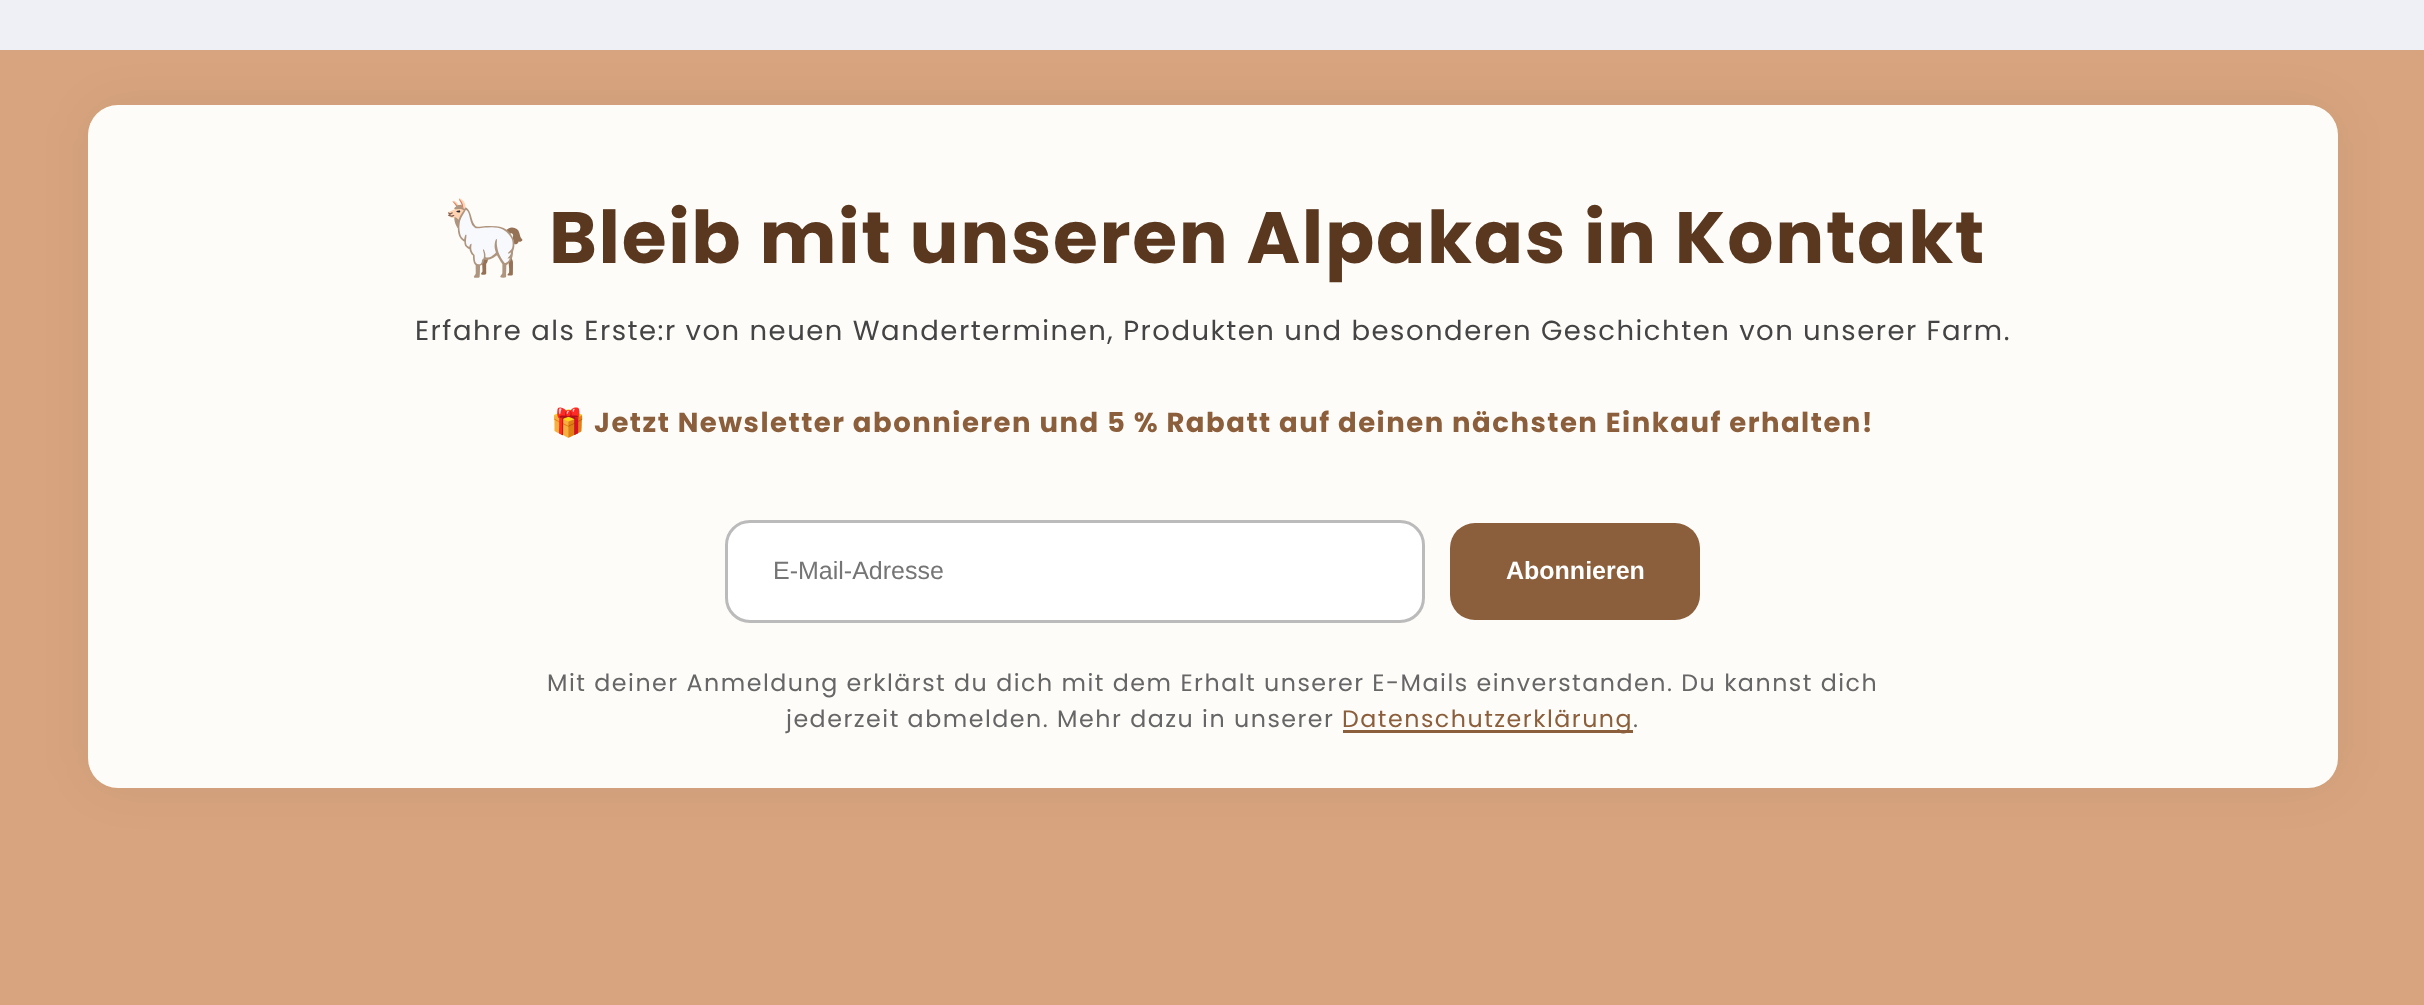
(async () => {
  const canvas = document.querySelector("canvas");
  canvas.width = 2424;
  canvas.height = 1005;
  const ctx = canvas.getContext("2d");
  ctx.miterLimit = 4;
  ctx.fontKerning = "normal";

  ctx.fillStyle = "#eff0f5";
  ctx.fillRect(0, 0, 2424, 1005);
  ctx.fillStyle = "#d8a47f";
  ctx.fillRect(0, 50, 2424, 793);
  ctx.fillStyle = "rgba(0, 0, 0, 0.05)";
  ctx.filter = "blur(25px)";
  ctx.beginPath();
  ctx.roundRect(88, 105, 2250, 683, 30);
  ctx.fill();
  ctx.filter = "none";
  ctx.fillStyle = "#fefcf8";
  ctx.beginPath();
  ctx.roundRect(88, 105, 2250, 683, 30);
  ctx.fill();
  ctx.fillStyle = "#ffffff";
  ctx.beginPath();
  ctx.roundRect(726.5, 521.5, 697, 100, 23.5);
  ctx.fill();
  ctx.strokeStyle = "#bbbbbb";
  ctx.lineWidth = 3;
  ctx.stroke();
  ctx.fillStyle = "#8b5e3c";
  ctx.beginPath();
  ctx.roundRect(1450, 523, 250, 97, 25);
  ctx.fill();
  ctx.fillRect(1343, 730, 290, 3);
  ctx.fillStyle = "#d8a47f";
  ctx.fillRect(0, 843, 2424, 162);
  ctx.letterSpacing = "1.65px";
  ctx.font = "bold 72.75px Noto Color Emoji";
  ctx.fillStyle = "#5a3820";
  ctx.fillText("🦙", 440, 263);
  ctx.font = "bold 72.75px Poppins";
  ctx.fillText("Bleib mit unseren Alpakas in Kontakt", 549, 263);
  ctx.letterSpacing = "1.5px";
  ctx.font = "27.5px Poppins";
  ctx.fillStyle = "#444444";
  ctx.fillText("Erfahre als Erste:r von neuen Wanderterminen, Produkten und besonderen Geschichten von unserer Farm.", 415, 340);
  ctx.font = "bold 27.5px Noto Color Emoji";
  ctx.fillStyle = "#8b5e3c";
  ctx.fillText("🎁", 551, 432);
  ctx.font = "bold 27.5px Poppins";
  ctx.fillText("Jetzt Newsletter abonnieren und 5 % Rabatt auf deinen nächsten Einkauf erhalten!", 594, 432);
  ctx.letterSpacing = "0px";
  ctx.font = "25px Liberation Sans";
  ctx.fillStyle = "#757575";
  ctx.fillText("E-Mail-Adresse", 773, 579);
  ctx.font = "bold 25px Liberation Sans";
  ctx.fillStyle = "#ffffff";
  ctx.fillText("Abonnieren", 1506, 579);
  ctx.letterSpacing = "1.5px";
  ctx.font = "23.75px Poppins";
  ctx.fillStyle = "#666666";
  ctx.fillText("Mit deiner Anmeldung erklärst du dich mit dem Erhalt unserer E-Mails einverstanden. Du kannst dich", 547, 691);
  ctx.fillText("jederzeit abmelden. Mehr dazu in unserer", 786, 727);
  ctx.fillStyle = "#8b5e3c";
  ctx.fillText("Datenschutzerklärung", 1342, 727);
  ctx.fillStyle = "#666666";
  ctx.fillText(".", 1633, 727);
})();
